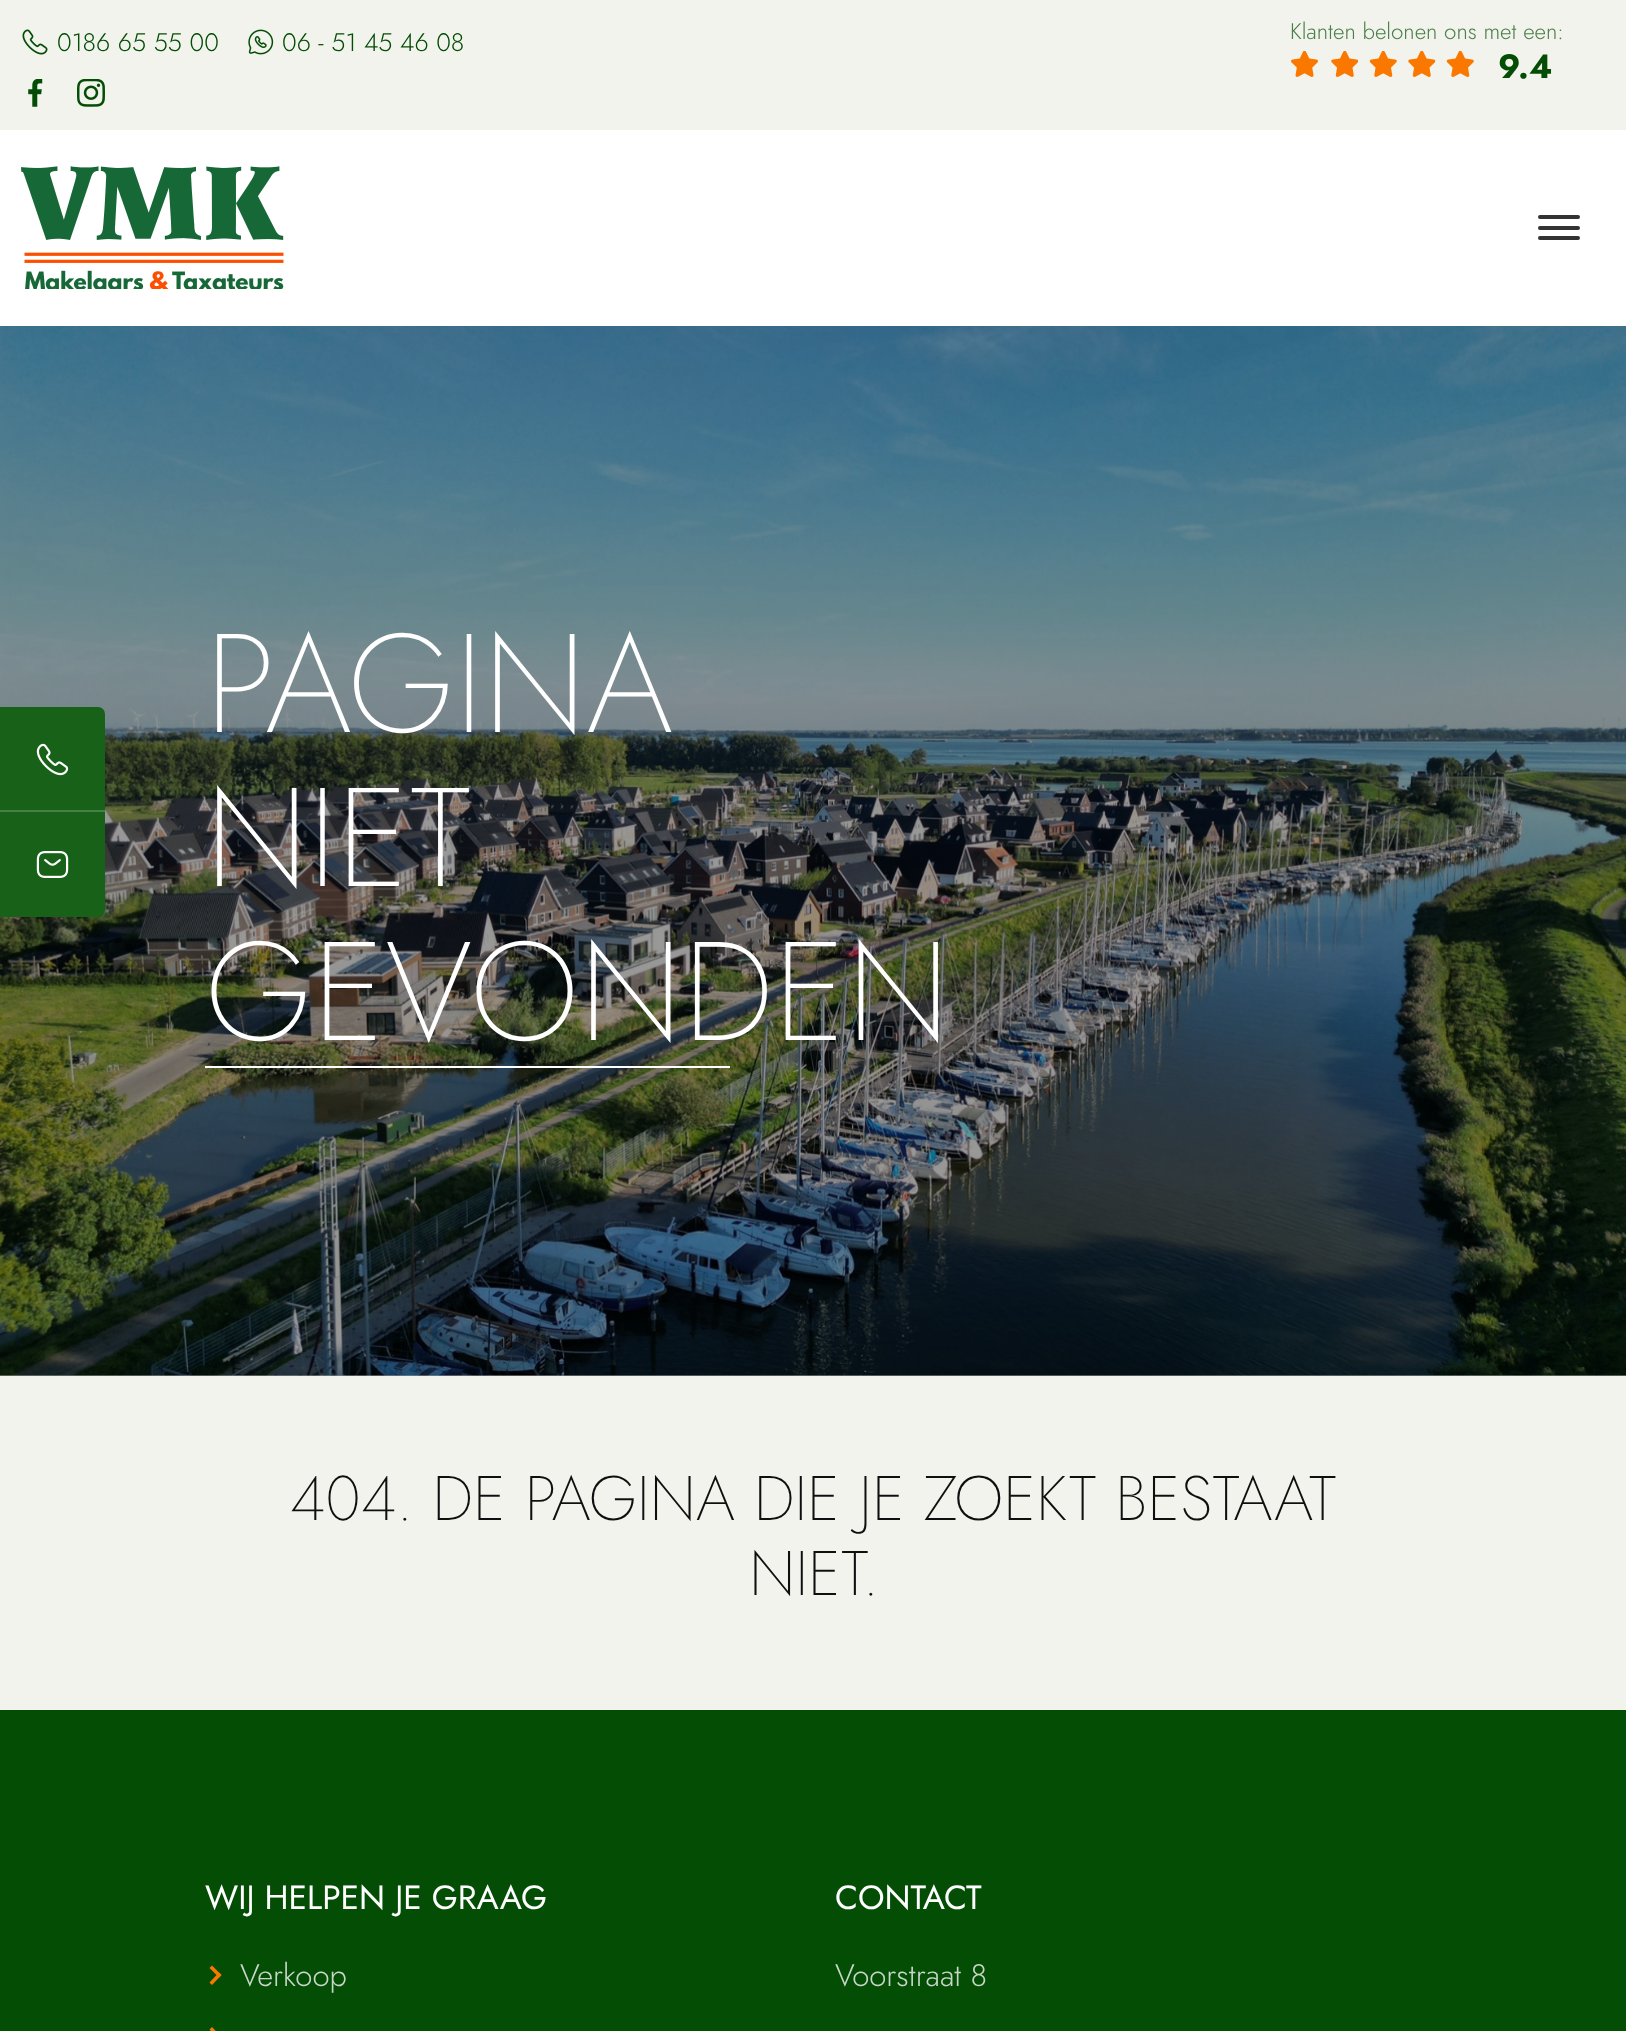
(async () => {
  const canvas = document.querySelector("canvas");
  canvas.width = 1626;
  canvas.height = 2031;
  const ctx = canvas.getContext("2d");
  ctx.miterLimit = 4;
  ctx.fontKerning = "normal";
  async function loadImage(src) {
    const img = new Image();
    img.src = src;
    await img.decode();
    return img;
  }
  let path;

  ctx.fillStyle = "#f2f3ec";
  ctx.fillRect(0, 0, 1626, 2031);
  ctx.fillStyle = "#91928e";
  ctx.fillRect(0, 1375, 1626, 1);
  ctx.drawImage(await loadImage("img/1.png"), 22, 29, 26, 26);
  ctx.drawImage(await loadImage("img/2.png"), 248, 29, 26, 26);
  ctx.drawImage(await loadImage("img/3.png"), 28, 79, 15, 28);
  ctx.drawImage(await loadImage("img/4.png"), 77, 79, 28, 28);
  ctx.drawImage(await loadImage("img/5.png"), 1291, 51, 27, 26);
  ctx.drawImage(await loadImage("img/6.png"), 1331, 51, 27, 26);
  ctx.drawImage(await loadImage("img/7.png"), 1369, 51, 28, 26);
  ctx.drawImage(await loadImage("img/8.png"), 1408, 51, 28, 26);
  ctx.drawImage(await loadImage("img/7.png"), 1446, 51, 28, 26);
  ctx.fillStyle = "#ffffff";
  ctx.fillRect(0, 130, 1626, 196);
  ctx.drawImage(await loadImage("img/9.png"), 21, 166, 263, 123);
  ctx.fillStyle = "#333333";
  ctx.beginPath();
  ctx.roundRect(1538, 215, 42, 4, 2);
  ctx.fill();
  ctx.beginPath();
  ctx.roundRect(1538, 226, 42, 4, 2);
  ctx.fill();
  ctx.beginPath();
  ctx.roundRect(1538, 236, 42, 4, 2);
  ctx.fill();
  ctx.drawImage(await loadImage("img/11.png"), 0, 326, 1626, 1050);
  ctx.fillStyle = "#176119";
  ctx.beginPath();
  ctx.roundRect(0, 707, 105, 105, [0, 7, 0, 0]);
  ctx.fill();
  ctx.fillStyle = "#458147";
  ctx.fillRect(0, 810, 105, 2);
  ctx.drawImage(await loadImage("img/10.png"), 36, 743, 33, 33);
  ctx.fillStyle = "#ffffff";
  ctx.fillRect(205, 1066, 525, 2);
  ctx.fillStyle = "#176119";
  ctx.beginPath();
  ctx.roundRect(0, 812, 105, 105, [0, 0, 7, 0]);
  ctx.fill();
  ctx.drawImage(await loadImage("img/12.png"), 36, 851, 33, 27);
  ctx.fillStyle = "#034d05";
  ctx.fillRect(0, 1710, 1626, 321);
  ctx.fillStyle = "#fa7800";
  path = new Path2D("M209.5 1968L212 1965.5L221.5 1975L219 1977.5Z");
  ctx.fill(path);
  path = new Path2D("M209.5 1982.5L219 1972.5L221.5 1975L212 1985ZM209.5 2029.5L212 2027L221.5 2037L219 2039.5Z");
  ctx.fill(path);
  ctx.font = "300 25.25px Jost";
  ctx.fillStyle = "#034d05";
  ctx.fillText("0186 65 55 00", 57, 51);
  ctx.fillText("06 - 51 45 46 08", 282, 51);
  ctx.font = "300 22.4px Jost";
  ctx.fillStyle = "#4b7f4a";
  ctx.fillText("Klanten belonen ons met een:", 1290, 39);
  ctx.font = "bold 33.6px Jost";
  ctx.fillStyle = "#034d05";
  ctx.fillText("9.4", 1498, 78);
  ctx.font = "200 140px Jost";
  ctx.fillStyle = "#ffffff";
  for (const [text, x, y] of [
    ["PAGINA", 205, 732],
    ["NIET", 205, 886],
    ["GEVONDEN", 205, 1040],
  ]) {
    ctx.fillText(text, x, y);
  }
  ctx.font = "200 62.9px Jost";
  ctx.fillStyle = "#0f0f0f";
  ctx.fillText("404. DE PAGINA DIE JE ZOEKT BESTAAT", 290, 1520);
  ctx.fillText("NIET.", 749, 1595);
  ctx.font = "33.6px Jost";
  ctx.fillStyle = "#ffffff";
  ctx.fillText("WIJ HELPEN JE GRAAG", 205, 1909);
  ctx.font = "300 31px Jost";
  ctx.fillStyle = "#c8d7c8";
  ctx.fillText("Verkoop", 240, 1986);
  ctx.font = "33.6px Jost";
  ctx.fillStyle = "#ffffff";
  ctx.fillText("CONTACT", 835, 1909);
  ctx.font = "300 31px Jost";
  ctx.fillStyle = "#c8d7c8";
  ctx.fillText("Voorstraat 8", 835, 1986);
})();
